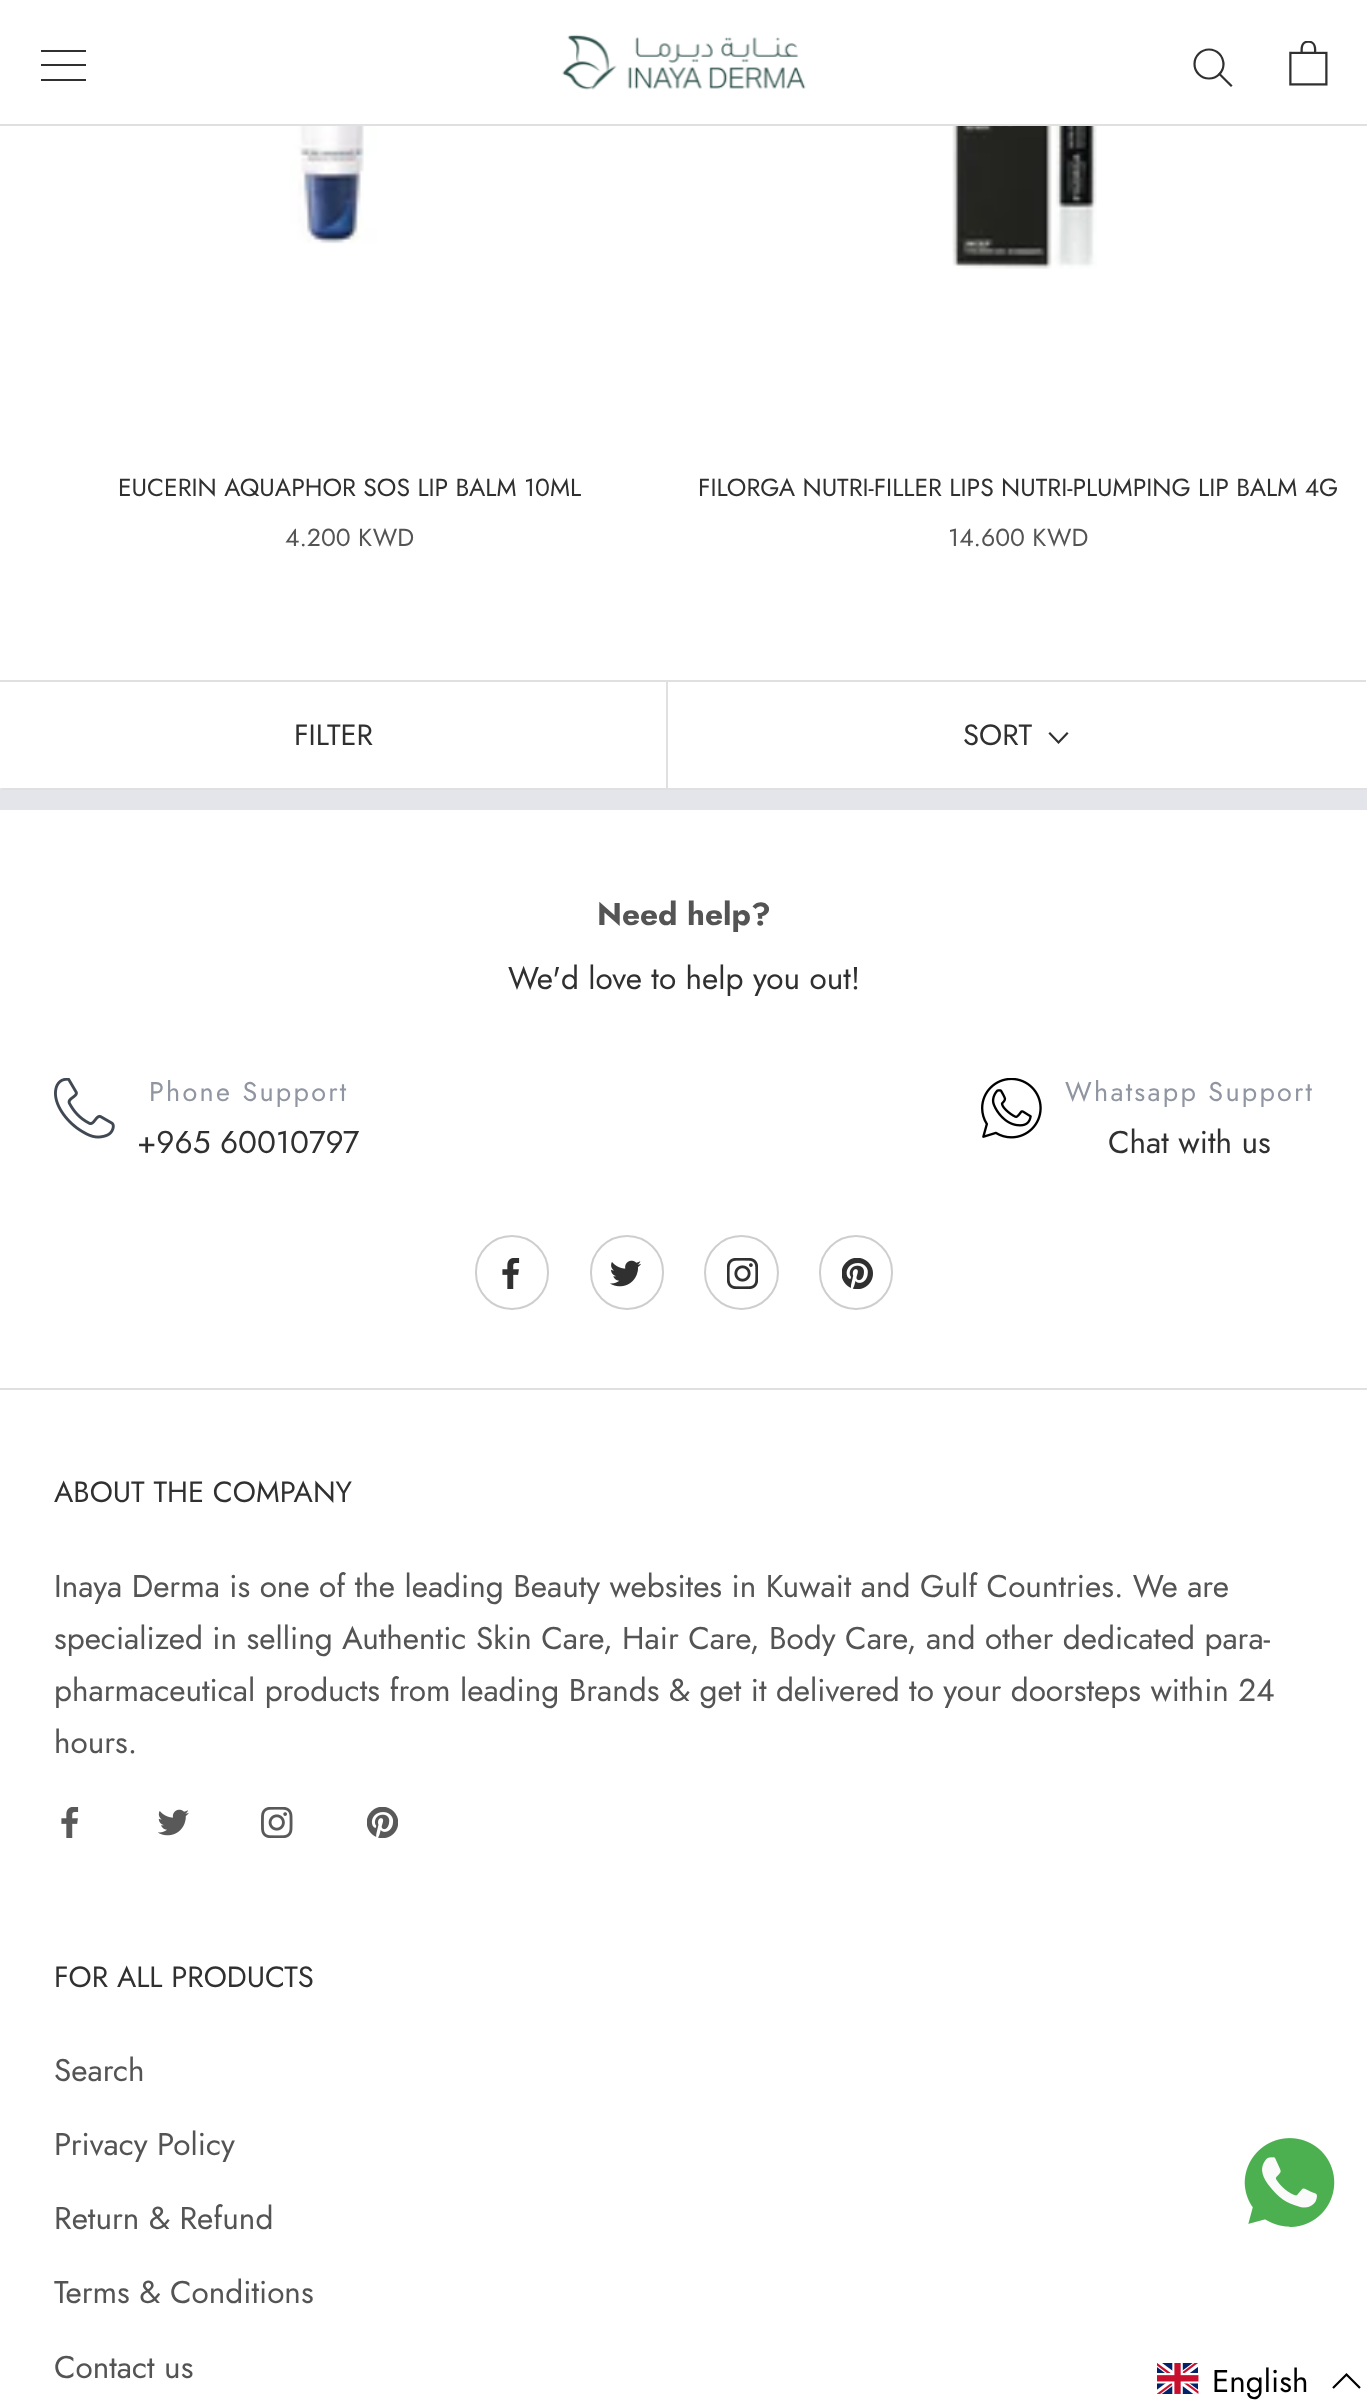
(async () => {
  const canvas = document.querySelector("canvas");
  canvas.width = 1367;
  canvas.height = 2407;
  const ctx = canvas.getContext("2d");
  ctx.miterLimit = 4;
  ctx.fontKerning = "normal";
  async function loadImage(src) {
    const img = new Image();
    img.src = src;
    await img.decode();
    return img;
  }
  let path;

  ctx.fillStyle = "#ffffff";
  ctx.fillRect(0, 0, 1367, 2407);
  ctx.fillStyle = "#e0e0e0";
  ctx.fillRect(0, 124, 1367, 2);
  ctx.save();
  ctx.beginPath();
  ctx.rect(41, 50, 45, 31);
  ctx.clip();
  ctx.fillStyle = "#303030";
  path = new Path2D("M40 81V79H86V81ZM40 64H86V66H40ZM40 50H86V52H40Z");
  ctx.fill(path);
  ctx.restore();
  ctx.drawImage(await loadImage("img/1.png"), 562, 34, 244, 56);
  path = new Path2D("M1231 85.5L1219.5 74");
  ctx.strokeStyle = "#303030";
  ctx.lineWidth = 2.2;
  ctx.lineCap = "square";
  ctx.stroke(path);
  ctx.beginPath();
  ctx.arc(1209, 64, 14.5, 0, Math.PI * 2);
  ctx.stroke();
  ctx.drawImage(await loadImage("img/2.png"), 1289, 41, 39, 45);
  ctx.drawImage(await loadImage("img/3.png"), 289, 126, 88, 118);
  ctx.drawImage(await loadImage("img/4.png"), 952, 126, 145, 143);
  path = new Path2D("M-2 680V785H0V682H1366V680Z");
  ctx.fill(path);
  ctx.fillStyle = "#e3e5ea";
  ctx.fillRect(0, 788, 1367, 22);
  ctx.fillStyle = "#e0e0e0";
  path = new Path2D("M2 788V790H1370V684H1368V788Z");
  ctx.fill(path);
  ctx.fillRect(666, 682, 2, 106);
  path = new Path2D("M1067 733.5L1058.5 742.5L1050 733.5");
  ctx.stroke(path);
  ctx.drawImage(await loadImage("img/5.png"), 54, 1078, 61, 61);
  ctx.drawImage(await loadImage("img/6.png"), 981, 1078, 61, 61);
  ctx.beginPath();
  ctx.roundRect(476, 1236, 72, 73, 36);
  ctx.strokeStyle = "#cecece";
  ctx.lineWidth = 2;
  ctx.stroke();
  ctx.drawImage(await loadImage("img/7.png"), 502, 1258, 18, 31);
  ctx.beginPath();
  ctx.roundRect(591, 1236, 72, 73, 36);
  ctx.stroke();
  ctx.drawImage(await loadImage("img/8.png"), 610, 1260, 31, 27);
  ctx.beginPath();
  ctx.arc(741.5, 1272.5, 36.5, 0, Math.PI * 2);
  ctx.stroke();
  ctx.drawImage(await loadImage("img/9.png"), 727, 1258, 31, 31);
  ctx.beginPath();
  ctx.roundRect(820, 1236, 72, 73, 36);
  ctx.stroke();
  ctx.drawImage(await loadImage("img/10.png"), 842, 1258, 31, 31);
  ctx.fillRect(0, 1388, 1367, 2);
  ctx.drawImage(await loadImage("img/11.png"), 61, 1807, 18, 31);
  ctx.drawImage(await loadImage("img/12.png"), 158, 1809, 31, 27);
  ctx.drawImage(await loadImage("img/13.png"), 261, 1807, 32, 31);
  ctx.drawImage(await loadImage("img/14.png"), 367, 1807, 31, 31);
  ctx.drawImage(await loadImage("img/15.png"), 1244, 2138, 91, 89);
  ctx.drawImage(await loadImage("img/16.png"), 1157, 2363, 42, 31);
  path = new Path2D("M1360 2388L1346.5 2374.5L1333 2388");
  ctx.strokeStyle = "#000000";
  ctx.lineWidth = 2.2;
  ctx.lineCap = "butt";
  ctx.stroke(path);
  ctx.font = "24.75px Jost";
  ctx.fillStyle = "#303030";
  ctx.fillText("EUCERIN AQUAPHOR SOS LIP BALM 10ML", 118, 496);
  ctx.fillStyle = "#545454";
  ctx.fillText("4.200 KWD", 285, 546);
  ctx.fillStyle = "#303030";
  ctx.fillText("FILORGA NUTRI-FILLER LIPS NUTRI-PLUMPING LIP BALM 4G", 698, 496);
  ctx.fillStyle = "#545454";
  ctx.fillText("14.600 KWD", 948, 546);
  ctx.font = "29.25px Jost";
  ctx.fillStyle = "#303030";
  ctx.fillText("FILTER", 294, 745);
  ctx.fillText("SORT", 963, 745);
  ctx.font = "bold 31.5px Jost";
  ctx.fillStyle = "#545454";
  ctx.fillText("Need help?", 597, 925);
  ctx.font = "31.5px Jost";
  ctx.fillStyle = "#303030";
  ctx.fillText("We'd love to help you out!", 508, 989);
  ctx.letterSpacing = "2.25px";
  ctx.font = "27px Jost";
  ctx.fillStyle = "#8f95a1";
  ctx.fillText("Phone Support", 149, 1101);
  ctx.letterSpacing = "0px";
  ctx.font = "31.5px Jost";
  ctx.fillStyle = "#303030";
  ctx.fillText("+965 60010797", 137, 1153);
  ctx.letterSpacing = "2.25px";
  ctx.font = "27px Jost";
  ctx.fillStyle = "#8f95a1";
  ctx.fillText("Whatsapp Support", 1065, 1101);
  ctx.letterSpacing = "0px";
  ctx.font = "31.5px Jost";
  ctx.fillStyle = "#303030";
  ctx.fillText("Chat with us", 1108, 1153);
  ctx.font = "29.25px Jost";
  ctx.fillText("ABOUT THE COMPANY", 54, 1502);
  ctx.font = "31.5px Jost";
  ctx.fillStyle = "#545454";
  for (const [text, x, y] of [
    ["Inaya Derma is one of the leading Beauty websites in Kuwait and Gulf Countries. We are", 54, 1597],
    ["specialized in selling Authentic Skin Care, Hair Care, Body Care, and other dedicated para-", 54, 1649],
    ["pharmaceutical products from leading Brands & get it delivered to your doorsteps within 24", 54, 1701],
    ["hours.", 54, 1753],
  ]) {
    ctx.fillText(text, x, y);
  }
  ctx.font = "29.25px Jost";
  ctx.fillStyle = "#303030";
  ctx.fillText("FOR ALL PRODUCTS", 54, 1987);
  ctx.font = "31.5px Jost";
  ctx.fillStyle = "#545454";
  for (const [text, x, y] of [
    ["Search", 54, 2081],
    ["Privacy Policy", 54, 2155],
    ["Return & Refund", 54, 2229],
    ["Terms & Conditions", 54, 2303],
    ["Contact us", 54, 2378],
  ]) {
    ctx.fillText(text, x, y);
  }
  ctx.fillStyle = "#000000";
  ctx.fillText("English", 1212, 2392);
})();
